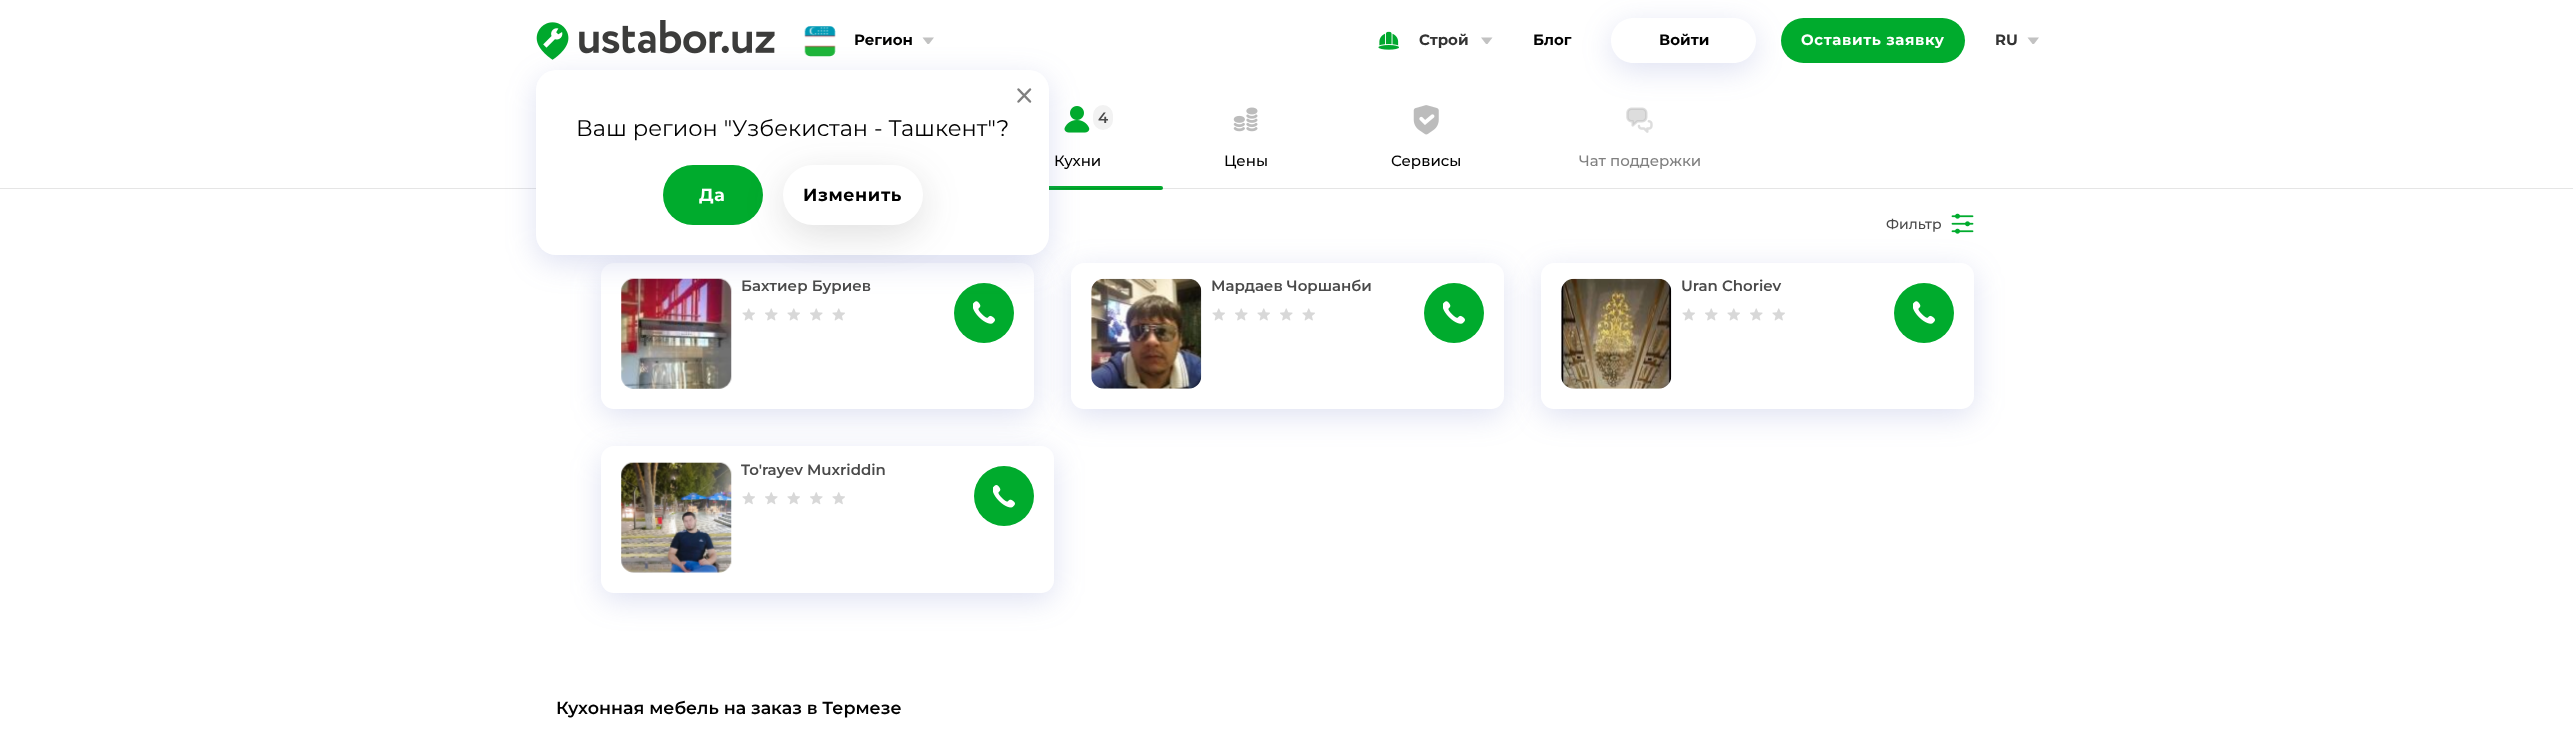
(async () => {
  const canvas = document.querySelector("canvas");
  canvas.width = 2573;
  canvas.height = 743;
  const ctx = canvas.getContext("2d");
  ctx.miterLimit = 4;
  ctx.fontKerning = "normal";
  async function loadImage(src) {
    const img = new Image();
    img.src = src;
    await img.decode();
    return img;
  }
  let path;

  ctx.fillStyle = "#ffffff";
  ctx.fillRect(0, 0, 2573, 743);
  ctx.drawImage(await loadImage("img/1.png"), 536, 20, 239, 40);
  ctx.drawImage(await loadImage("img/2.png"), 804, 26, 32, 31);
  ctx.fillStyle = "#c2c2c2";
  path = new Path2D("M922.5 37.5H934L929 44H927.5Z");
  ctx.fill(path);
  ctx.drawImage(await loadImage("img/3.png"), 1378, 31, 21, 19);
  path = new Path2D("M1481 37.5H1492.5L1487.5 44H1486Z");
  ctx.fill(path);
  ctx.fillStyle = "#00ab2d";
  ctx.beginPath();
  ctx.roundRect(1781, 18, 184, 45, 22.5);
  ctx.fill();
  ctx.drawImage(await loadImage("img/7.png"), 1626, 107, 27, 26);
  ctx.save();
  path = new Path2D("M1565 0H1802V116H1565ZM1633.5 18H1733.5C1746 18 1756 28 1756 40.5C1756 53 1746 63 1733.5 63H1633.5C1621 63 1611 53 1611 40.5C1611 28 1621 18 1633.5 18Z");
  ctx.clip(path, "evenodd");
  ctx.fillStyle = "rgba(92, 107, 192, 0.2)";
  ctx.filter = "blur(15px)";
  ctx.beginPath();
  ctx.roundRect(1611, 25, 145, 45, 22.5);
  ctx.fill();
  ctx.filter = "none";
  ctx.restore();
  ctx.fillStyle = "#c2c2c2";
  path = new Path2D("M2027.5 37.5H2039L2034 44H2032.5Z");
  ctx.fill(path);
  ctx.drawImage(await loadImage("img/4.png"), 1064, 106, 26, 27);
  ctx.fillStyle = "#f2f2f2";
  ctx.beginPath();
  ctx.roundRect(1093, 105, 20, 25, 10);
  ctx.fill();
  ctx.fillStyle = "#00ab2d";
  ctx.beginPath();
  ctx.roundRect(993, 186, 170, 4, 2);
  ctx.fill();
  ctx.fillStyle = "rgba(0, 0, 0, 0.1)";
  ctx.fillRect(0, 188, 2573, 1);
  ctx.fillStyle = "rgba(92, 107, 192, 0.2)";
  ctx.filter = "blur(15px)";
  ctx.beginPath();
  ctx.roundRect(601, 270, 433, 146, 13);
  ctx.fill();
  ctx.filter = "none";
  ctx.fillStyle = "#ffffff";
  ctx.beginPath();
  ctx.roundRect(601, 263, 433, 146, 13);
  ctx.fill();
  ctx.drawImage(await loadImage("img/9.png"), 621, 278, 111, 111);
  ctx.drawImage(await loadImage("img/10.png"), 742, 308, 13, 13);
  ctx.drawImage(await loadImage("img/11.png"), 765, 308, 13, 13);
  ctx.drawImage(await loadImage("img/10.png"), 787, 308, 13, 13);
  ctx.drawImage(await loadImage("img/11.png"), 810, 308, 13, 13);
  ctx.drawImage(await loadImage("img/10.png"), 832, 308, 13, 13);
  ctx.fillStyle = "#00ab2d";
  ctx.beginPath();
  ctx.arc(984, 313, 30, 0, Math.PI * 2);
  ctx.fill();
  ctx.drawImage(await loadImage("img/12.png"), 973, 301, 22, 23);
  ctx.fillStyle = "rgba(92, 107, 192, 0.2)";
  ctx.filter = "blur(15px)";
  ctx.beginPath();
  ctx.roundRect(1071, 270, 433, 146, 13);
  ctx.fill();
  ctx.filter = "none";
  ctx.fillStyle = "#ffffff";
  ctx.beginPath();
  ctx.roundRect(1071, 263, 433, 146, 13);
  ctx.fill();
  ctx.drawImage(await loadImage("img/13.png"), 1091, 278, 111, 111);
  ctx.fillStyle = "rgba(92, 107, 192, 0.2)";
  ctx.filter = "blur(15px)";
  ctx.beginPath();
  ctx.roundRect(536, 78, 513, 185, 20);
  ctx.fill();
  ctx.filter = "none";
  ctx.fillStyle = "#ffffff";
  ctx.beginPath();
  ctx.roundRect(536, 70, 513, 185, 20);
  ctx.fill();
  path = new Path2D("M1030 89.5L1018.5 101.5M1018.5 89.5L1030 101.5");
  ctx.strokeStyle = "#808080";
  ctx.lineWidth = 2.5;
  ctx.lineCap = "round";
  ctx.lineJoin = "round";
  ctx.stroke(path);
  ctx.fillStyle = "#00ab2d";
  ctx.beginPath();
  ctx.roundRect(663, 165, 100, 60, 30);
  ctx.fill();
  ctx.fillStyle = "rgba(59, 59, 59, 0.16)";
  ctx.filter = "blur(19px)";
  ctx.beginPath();
  ctx.roundRect(783, 175, 140, 60, 30);
  ctx.fill();
  ctx.filter = "none";
  ctx.fillStyle = "#ffffff";
  ctx.beginPath();
  ctx.roundRect(783, 165, 140, 60, 30);
  ctx.fill();
  ctx.drawImage(await loadImage("img/5.png"), 1233, 107, 25, 25);
  ctx.drawImage(await loadImage("img/6.png"), 1413, 105, 26, 30);
  ctx.drawImage(await loadImage("img/8.png"), 1951, 213, 23, 21);
  ctx.drawImage(await loadImage("img/10.png"), 1212, 308, 13, 13);
  ctx.drawImage(await loadImage("img/11.png"), 1235, 308, 13, 13);
  ctx.drawImage(await loadImage("img/10.png"), 1257, 308, 13, 13);
  ctx.drawImage(await loadImage("img/11.png"), 1280, 308, 13, 13);
  ctx.drawImage(await loadImage("img/10.png"), 1302, 308, 13, 13);
  ctx.fillStyle = "#00ab2d";
  ctx.beginPath();
  ctx.arc(1454, 313, 30, 0, Math.PI * 2);
  ctx.fill();
  ctx.drawImage(await loadImage("img/12.png"), 1443, 301, 22, 23);
  ctx.fillStyle = "rgba(92, 107, 192, 0.2)";
  ctx.filter = "blur(15px)";
  ctx.beginPath();
  ctx.roundRect(1541, 270, 433, 146, 13);
  ctx.fill();
  ctx.filter = "none";
  ctx.fillStyle = "#ffffff";
  ctx.beginPath();
  ctx.roundRect(1541, 263, 433, 146, 13);
  ctx.fill();
  ctx.drawImage(await loadImage("img/14.png"), 1561, 278, 111, 111);
  ctx.drawImage(await loadImage("img/10.png"), 1682, 308, 13, 13);
  ctx.drawImage(await loadImage("img/11.png"), 1705, 308, 13, 13);
  ctx.drawImage(await loadImage("img/10.png"), 1727, 308, 13, 13);
  ctx.drawImage(await loadImage("img/11.png"), 1750, 308, 13, 13);
  ctx.drawImage(await loadImage("img/10.png"), 1772, 308, 13, 13);
  ctx.fillStyle = "#00ab2d";
  ctx.beginPath();
  ctx.arc(1924, 313, 30, 0, Math.PI * 2);
  ctx.fill();
  ctx.drawImage(await loadImage("img/12.png"), 1913, 301, 22, 23);
  ctx.fillStyle = "rgba(92, 107, 192, 0.2)";
  ctx.filter = "blur(15px)";
  ctx.beginPath();
  ctx.roundRect(601, 454, 453, 146, 13);
  ctx.fill();
  ctx.filter = "none";
  ctx.fillStyle = "#ffffff";
  ctx.beginPath();
  ctx.roundRect(601, 446, 453, 147, 13);
  ctx.fill();
  ctx.drawImage(await loadImage("img/15.png"), 621, 462, 111, 111);
  ctx.drawImage(await loadImage("img/16.png"), 742, 492, 13, 13);
  ctx.drawImage(await loadImage("img/17.png"), 765, 492, 13, 13);
  ctx.drawImage(await loadImage("img/16.png"), 787, 492, 13, 13);
  ctx.drawImage(await loadImage("img/17.png"), 810, 492, 13, 13);
  ctx.drawImage(await loadImage("img/16.png"), 832, 492, 13, 13);
  ctx.fillStyle = "#00ab2d";
  ctx.beginPath();
  ctx.arc(1004, 496, 30, 0, Math.PI * 2);
  ctx.fill();
  ctx.drawImage(await loadImage("img/18.png"), 993, 485, 22, 23);
  ctx.font = "bold 15px Montserrat";
  ctx.fillStyle = "#000000";
  ctx.fillText("Регион", 854, 45);
  ctx.fillStyle = "#333333";
  ctx.fillText("Строй", 1419, 45);
  ctx.fillStyle = "#000000";
  ctx.fillText("Блог", 1533, 45);
  ctx.fillText("Войти", 1659, 45);
  ctx.letterSpacing = "0.6px";
  ctx.fillStyle = "#ffffff";
  ctx.fillText("Оставить заявку", 1801, 45);
  ctx.letterSpacing = "0px";
  ctx.fillStyle = "#333333";
  ctx.fillText("RU", 1995, 45);
  ctx.font = "22.5px Montserrat";
  ctx.fillStyle = "#000000";
  ctx.fillText("Ваш регион \"Узбекистан - Ташкент\"?", 576, 136);
  ctx.letterSpacing = "0.6px";
  ctx.font = "bold 17.5px Montserrat";
  ctx.fillStyle = "#ffffff";
  ctx.fillText("Да", 699, 201);
  ctx.fillStyle = "#000000";
  ctx.fillText("Изменить", 803, 201);
  ctx.letterSpacing = "0px";
  ctx.font = "600 15px Montserrat";
  ctx.fillStyle = "#4a4a4a";
  ctx.fillText("4", 1098, 123);
  ctx.font = "500 15px Montserrat";
  ctx.fillStyle = "#000000";
  for (const [text, x, y] of [
    ["Кухни", 1054, 166],
    ["Цены", 1224, 166],
    ["Сервисы", 1391, 166],
  ]) {
    ctx.fillText(text, x, y);
  }
  ctx.fillStyle = "#808080";
  ctx.fillText("Чат поддержки", 1579, 166);
  ctx.font = "500 14px Montserrat";
  ctx.fillStyle = "#4a4a4a";
  ctx.fillText("Фильтр", 1886, 229);
  ctx.font = "600 15px Montserrat";
  for (const [text, x, y] of [
    ["Бахтиер Буриев", 741, 291],
    ["Мардаев Чоршанби", 1211, 291],
    ["Uran Choriev", 1681, 291],
    ["To'rayev Muxriddin", 741, 475],
  ]) {
    ctx.fillText(text, x, y);
  }
  ctx.font = "600 17.5px Montserrat";
  ctx.fillStyle = "#000000";
  ctx.fillText("Кухонная мебель на заказ в Термезе", 556, 714);
})();
